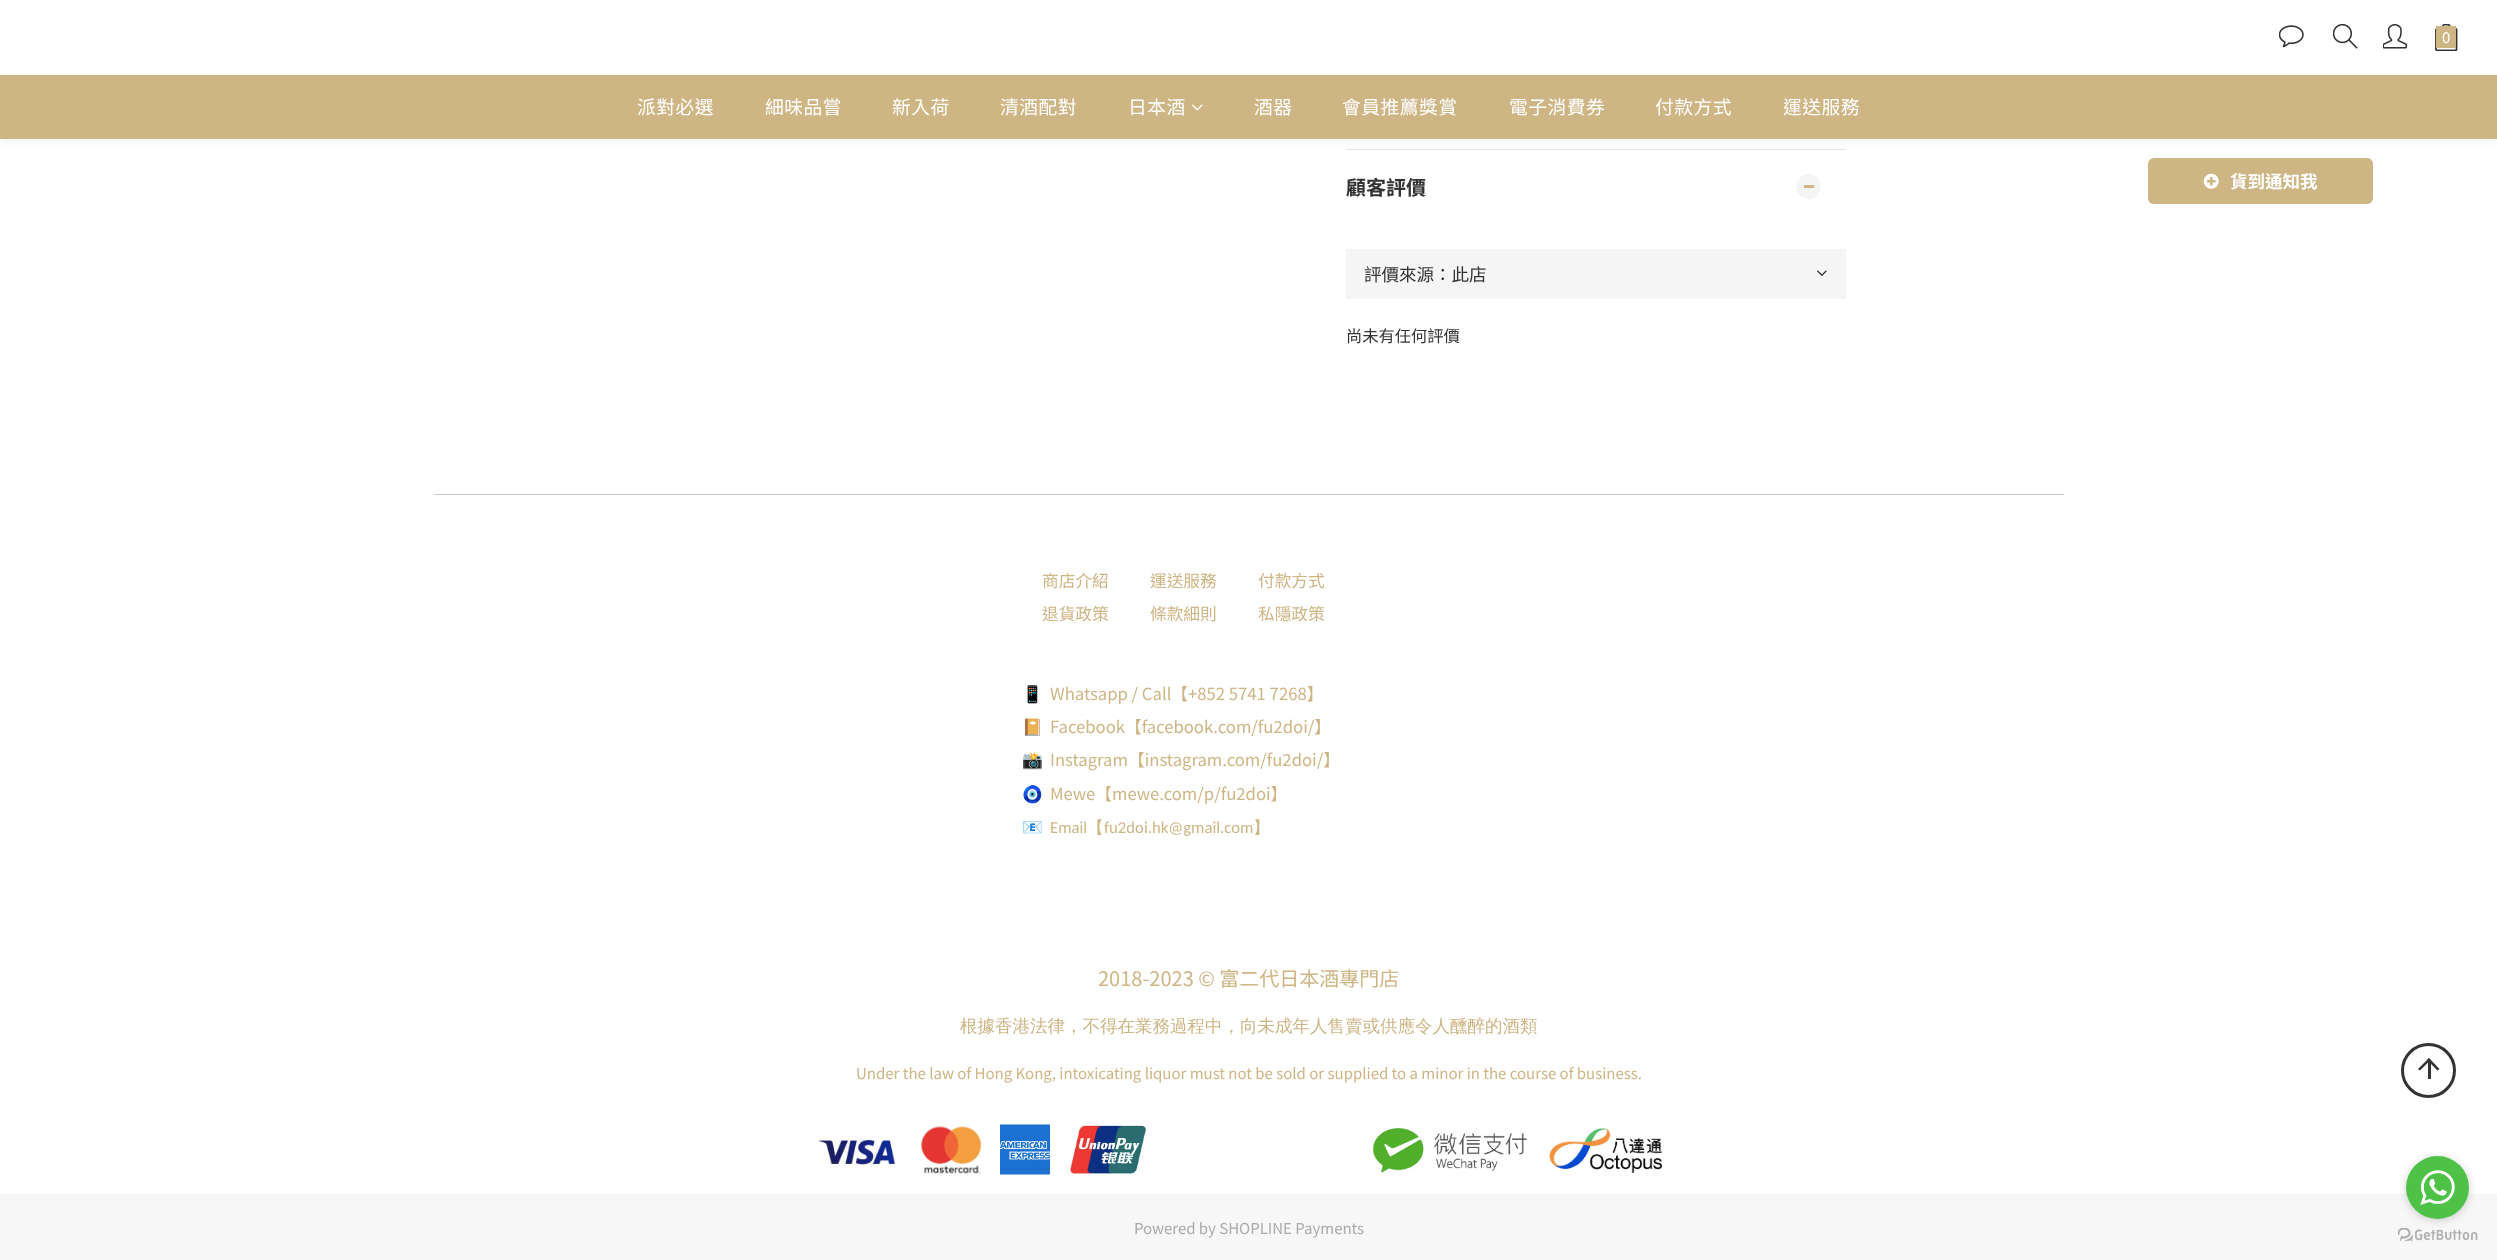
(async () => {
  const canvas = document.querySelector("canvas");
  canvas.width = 2497;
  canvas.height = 1260;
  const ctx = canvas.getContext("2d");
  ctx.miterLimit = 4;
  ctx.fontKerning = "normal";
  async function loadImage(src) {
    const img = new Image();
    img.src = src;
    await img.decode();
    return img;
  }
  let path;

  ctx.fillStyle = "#ffffff";
  ctx.fillRect(0, 0, 2497, 1260);
  ctx.fillStyle = "#e6e6e6";
  ctx.fillRect(1346, 149, 500, 1);
  ctx.fillStyle = "rgba(0, 0, 0, 0.06)";
  ctx.filter = "blur(4px)";
  ctx.beginPath();
  ctx.rect(0, 3, 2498, 138);
  ctx.fill();
  ctx.filter = "none";
  ctx.fillStyle = "#ffffff";
  ctx.fillRect(0, 0, 2497, 75);
  ctx.drawImage(await loadImage("img/1.png"), 2279, 25, 25, 23);
  ctx.drawImage(await loadImage("img/2.png"), 2333, 24, 25, 25);
  ctx.drawImage(await loadImage("img/3.png"), 2383, 24, 25, 25);
  ctx.drawImage(await loadImage("img/4.png"), 2435, 24, 23, 27);
  ctx.fillStyle = "#ceb584";
  ctx.fillRect(2436, 26, 20, 22);
  ctx.fillRect(0, 75, 2497, 64);
  ctx.drawImage(await loadImage("img/5.png"), 1192, 104, 11, 7);
  ctx.fillStyle = "#f5f5f5";
  ctx.beginPath();
  ctx.arc(1808.5, 186.5, 12.5, 0, Math.PI * 2);
  ctx.fill();
  ctx.fillStyle = "#ceb584";
  ctx.fillRect(1804, 185, 10, 3);
  ctx.fillStyle = "#f5f5f5";
  ctx.fillRect(1346, 249, 500, 50);
  ctx.drawImage(await loadImage("img/6.png"), 1817, 270, 10, 6);
  ctx.fillStyle = "#ceb584";
  ctx.beginPath();
  ctx.roundRect(2148, 158, 225, 46, 6);
  ctx.fill();
  ctx.drawImage(await loadImage("img/7.png"), 2203, 173, 16, 16);
  ctx.fillStyle = "#cccccc";
  ctx.fillRect(434, 494, 1630, 1);
  ctx.drawImage(await loadImage("img/8.png"), 818, 1138, 79, 29);
  ctx.drawImage(await loadImage("img/9.png"), 921, 1126, 61, 48);
  ctx.drawImage(await loadImage("img/10.png"), 1000, 1124, 50, 51);
  ctx.drawImage(await loadImage("img/11.png"), 1070, 1125, 77, 49);
  ctx.drawImage(await loadImage("img/12.png"), 1372, 1128, 156, 45);
  ctx.drawImage(await loadImage("img/13.png"), 1549, 1128, 114, 45);
  ctx.fillStyle = "#f7f7f7";
  ctx.fillRect(0, 1194, 2497, 66);
  ctx.beginPath();
  ctx.arc(2428.5, 1070.5, 26, 0, Math.PI * 2);
  ctx.strokeStyle = "#333333";
  ctx.lineWidth = 3;
  ctx.stroke();
  ctx.fillStyle = "#333333";
  path = new Path2D("M2429 1058L2439.5 1069L2437.5 1070.5L2427 1060Z");
  ctx.fill(path);
  path = new Path2D("M2429 1058L2430.5 1060L2420 1070.5L2418 1069Z");
  ctx.fill(path);
  ctx.fillRect(2428, 1061, 3, 18);
  ctx.drawImage(await loadImage("img/15.png"), 2398, 1228, 80, 13);
  ctx.fillStyle = "rgba(136, 136, 136, 0.4)";
  ctx.filter = "blur(4.5px)";
  ctx.beginPath();
  ctx.roundRect(2406, 1158, 63, 62, 31);
  ctx.fill();
  ctx.filter = "none";
  ctx.fillStyle = "#4dc247";
  ctx.beginPath();
  ctx.arc(2437.5, 1187.5, 31.5, 0, Math.PI * 2);
  ctx.fill();
  ctx.drawImage(await loadImage("img/14.png"), 2420, 1170, 35, 35);
  ctx.font = "15px Noto Sans TC";
  ctx.fillStyle = "#ffffff";
  ctx.fillText("0", 2442, 43);
  ctx.letterSpacing = "0.5px";
  ctx.font = "18.75px Noto Sans TC";
  for (const [text, x, y] of [
    ["派對必選", 637, 114],
    ["細味品嘗", 765, 114],
    ["新入荷", 892, 114],
    ["清酒配對", 1000, 114],
    ["日本酒", 1128, 114],
    ["酒器", 1254, 114],
    ["會員推薦獎賞", 1342, 114],
    ["電子消費券", 1509, 114],
    ["付款方式", 1655, 114],
    ["運送服務", 1783, 114],
  ]) {
    ctx.fillText(text, x, y);
  }
  ctx.letterSpacing = "0px";
  ctx.font = "bold 20px Noto Sans TC";
  ctx.fillStyle = "#333333";
  ctx.fillText("顧客評價", 1346, 195);
  ctx.font = "17.5px Noto Sans TC";
  ctx.fillText("評價來源：此店", 1364, 281);
  ctx.font = "16.25px Noto Sans TC";
  ctx.fillText("尚未有任何評價", 1346, 342);
  ctx.font = "bold 17.5px Noto Sans TC";
  ctx.fillStyle = "#ffffff";
  ctx.fillText("貨到通知我", 2230, 188);
  ctx.font = "16.7px Noto Sans TC";
  ctx.fillStyle = "#ceb584";
  for (const [text, x, y] of [
    ["商店介紹", 1042, 587],
    ["運送服務", 1150, 587],
    ["付款方式", 1258, 587],
    ["退貨政策", 1042, 620],
    ["條款細則", 1150, 620],
    ["私隱政策", 1258, 620],
  ]) {
    ctx.fillText(text, x, y);
  }
  ctx.font = "16.7px Noto Color Emoji";
  ctx.fillText("📱", 1022, 700);
  ctx.font = "16.7px Noto Sans TC";
  ctx.fillText("Whatsapp / Call【+852 5741 7268】", 1050, 700);
  ctx.font = "16.7px Noto Color Emoji";
  ctx.fillText("📔", 1022, 733);
  ctx.font = "16.7px Noto Sans TC";
  ctx.fillText("Facebook【facebook.com/fu2doi/】", 1050, 733);
  ctx.font = "16.7px Noto Color Emoji";
  ctx.fillText("📸", 1022, 766);
  ctx.font = "16.7px Noto Sans TC";
  ctx.fillText("Instagram【instagram.com/fu2doi/】", 1050, 766);
  ctx.font = "16.7px Noto Color Emoji";
  ctx.fillText("🧿", 1022, 800);
  ctx.font = "16.7px Noto Sans TC";
  ctx.fillText("Mewe【mewe.com/p/fu2doi】", 1050, 800);
  ctx.font = "16.7px 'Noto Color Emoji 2'";
  ctx.fillText("📧", 1022, 833);
  ctx.font = "16.7px Carlito";
  ctx.fillText("Email", 1050, 833);
  ctx.font = "500 16.7px WenQuanYi Zen Hei";
  ctx.fillText("【", 1087, 833);
  ctx.font = "16.7px Carlito";
  ctx.fillText("fu2doi.hk@gmail.com", 1104, 833);
  ctx.font = "500 16.7px WenQuanYi Zen Hei";
  ctx.fillText("】", 1253, 833);
  ctx.font = "20px Noto Sans TC";
  ctx.fillText("2018-2023 © 富二代日本酒專門店", 1098, 986);
  ctx.font = "500 17.5px WenQuanYi Zen Hei";
  ctx.fillText("根據香港法律，不得在業務過程中，向未成年人售賣或供應令人醺醉的酒類", 960, 1032);
  ctx.font = "15px Noto Sans TC";
  ctx.fillText("Under the law of Hong Kong, intoxicating liquor must not be sold or supplied to a minor in the course of business.", 856, 1079);
  ctx.fillStyle = "#aaaaaa";
  ctx.fillText("Powered by SHOPLINE Payments", 1134, 1234);
})();
